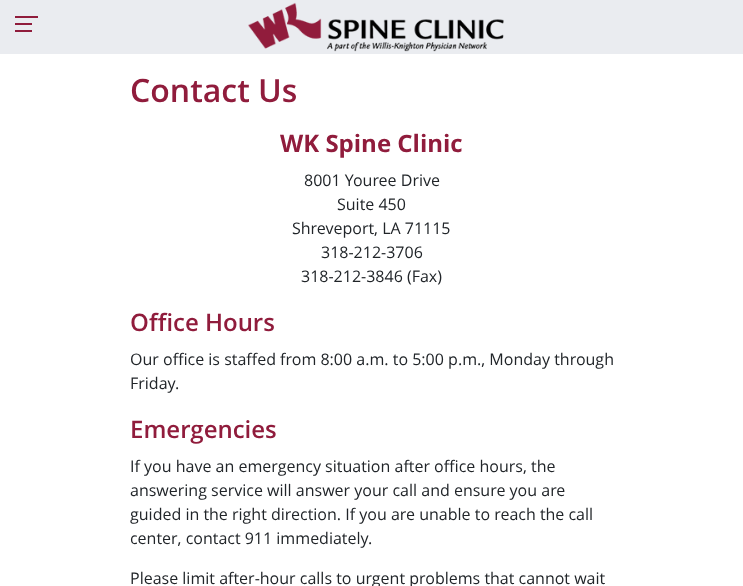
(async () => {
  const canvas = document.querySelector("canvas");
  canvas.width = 743;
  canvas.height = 586;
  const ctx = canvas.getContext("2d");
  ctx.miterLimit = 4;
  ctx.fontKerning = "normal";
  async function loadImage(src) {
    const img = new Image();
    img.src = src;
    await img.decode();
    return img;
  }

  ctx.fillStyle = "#ffffff";
  ctx.fillRect(0, 0, 743, 586);
  ctx.fillStyle = "rgba(0, 0, 0, 0.3)";
  ctx.filter = "blur(0.5px)";
  ctx.beginPath();
  ctx.rect(0, 0, 743, 54);
  ctx.fill();
  ctx.filter = "none";
  for (const [x, y, w, h, color] of [
    [0, 0, 743, 54, "#eaecf0"],
    [15, 23, 17, 2, "#901c3c"],
    [15, 16, 23, 2, "#901c3c"],
    [15, 30, 17, 2, "#901c3c"],
  ]) {
    ctx.fillStyle = color;
    ctx.fillRect(x, y, w, h);
  }
  ctx.drawImage(await loadImage("img/1.png"), 248, 2, 256, 50);
  ctx.font = "600 32px Open Sans";
  ctx.fillText("Contact Us", 130, 102);
  ctx.font = "bold 24px Open Sans";
  ctx.fillText("WK Spine Clinic", 280, 152);
  ctx.font = "16px Open Sans";
  ctx.fillStyle = "#212529";
  for (const [text, x, y] of [
    ["8001 Youree Drive", 304, 186],
    ["Suite 450", 337, 210],
    ["Shreveport, LA 71115", 292, 234],
    ["318-212-3706", 321, 258],
    ["318-212-3846 (Fax)", 301, 282],
  ]) {
    ctx.fillText(text, x, y);
  }
  ctx.font = "600 24px Open Sans";
  ctx.fillStyle = "#901c3c";
  ctx.fillText("Office Hours", 130, 331);
  ctx.font = "16px Open Sans";
  ctx.fillStyle = "#212529";
  ctx.fillText("Our office is staffed from 8:00 a.m. to 5:00 p.m., Monday through", 130, 365);
  ctx.fillText("Friday.", 130, 389);
  ctx.font = "600 24px Open Sans";
  ctx.fillStyle = "#901c3c";
  ctx.fillText("Emergencies", 130, 438);
  ctx.font = "16px Open Sans";
  ctx.fillStyle = "#212529";
  for (const [text, x, y] of [
    ["If you have an emergency situation after office hours, the", 130, 472],
    ["answering service will answer your call and ensure you are", 130, 496],
    ["guided in the right direction. If you are unable to reach the call", 130, 520],
    ["center, contact 911 immediately.", 130, 544],
    ["Please limit after-hour calls to urgent problems that cannot wait", 130, 584],
  ]) {
    ctx.fillText(text, x, y);
  }
})();
